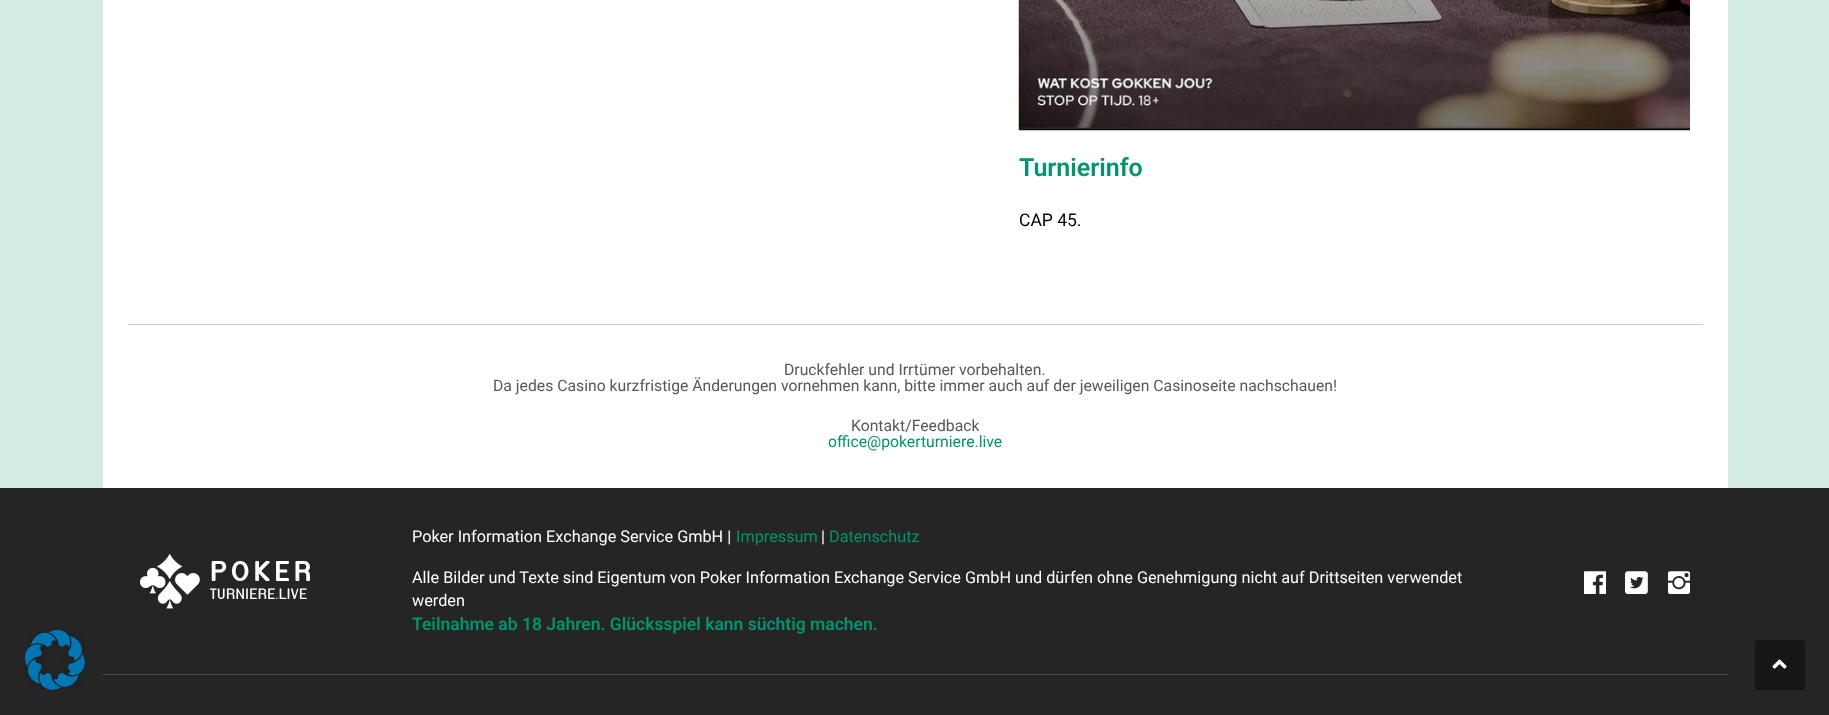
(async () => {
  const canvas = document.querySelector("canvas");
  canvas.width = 1829;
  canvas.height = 715;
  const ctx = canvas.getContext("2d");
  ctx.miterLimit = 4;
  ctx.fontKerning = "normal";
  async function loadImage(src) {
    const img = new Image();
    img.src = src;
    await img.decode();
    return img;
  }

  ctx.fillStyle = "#d5ebe5";
  ctx.fillRect(0, 0, 1829, 715);
  ctx.fillStyle = "#ffffff";
  ctx.fillRect(103, 0, 1625, 488);
  ctx.drawImage(await loadImage("img/1.png"), 1018, 0, 672, 131);
  ctx.fillStyle = "#cccccc";
  ctx.fillRect(128, 324, 1575, 1);
  ctx.fillStyle = "#252525";
  ctx.fillRect(0, 488, 1829, 227);
  ctx.drawImage(await loadImage("img/2.png"), 140, 554, 60, 55);
  ctx.drawImage(await loadImage("img/3.png"), 1584, 571, 22, 23);
  ctx.drawImage(await loadImage("img/4.png"), 1625, 571, 23, 23);
  ctx.drawImage(await loadImage("img/5.png"), 1668, 571, 22, 23);
  ctx.fillStyle = "#4b4b4b";
  ctx.fillRect(103, 674, 1625, 1);
  ctx.drawImage(await loadImage("img/6.png"), 25, 630, 60, 60);
  ctx.fillStyle = "#161616";
  ctx.beginPath();
  ctx.roundRect(1755, 640, 50, 50, 2.5);
  ctx.fill();
  ctx.drawImage(await loadImage("img/7.png"), 1772, 659, 15, 10);
  ctx.font = "600 25px Roboto";
  ctx.fillStyle = "#00956d";
  ctx.fillText("Turnierinfo", 1019, 176);
  ctx.font = "17.5px Roboto";
  ctx.fillStyle = "#000000";
  ctx.fillText("CAP 45.", 1019, 226);
  ctx.font = "15.75px Roboto";
  ctx.fillStyle = "#54595f";
  for (const [text, x, y] of [
    ["Druckfehler und Irrtümer vorbehalten.", 784, 375],
    ["Da jedes Casino kurzfristige Änderungen vornehmen kann, bitte immer auch auf der jeweiligen Casinoseite nachschauen!", 493, 391],
    ["Kontakt/Feedback", 851, 431],
  ]) {
    ctx.fillText(text, x, y);
  }
  ctx.fillStyle = "#00956d";
  ctx.fillText("office@pokerturniere.live", 828, 447);
  ctx.letterSpacing = "5px";
  ctx.font = "bold 27.5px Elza";
  ctx.fillStyle = "#ffffff";
  ctx.fillText("POKER", 210, 581);
  ctx.letterSpacing = "0.5px";
  ctx.font = "15px Elza";
  ctx.fillText("TURNIERE.LIVE", 210, 599);
  ctx.letterSpacing = "0px";
  ctx.font = "16.25px Roboto";
  ctx.fillText("Poker Information Exchange Service GmbH |", 412, 542);
  ctx.fillStyle = "#00956d";
  ctx.fillText("Impressum", 736, 542);
  ctx.fillStyle = "#ffffff";
  ctx.fillText("|", 821, 542);
  ctx.fillStyle = "#00956d";
  ctx.fillText("Datenschutz", 829, 542);
  ctx.fillStyle = "#ffffff";
  ctx.fillText("Alle Bilder und Texte sind Eigentum von Poker Information Exchange Service GmbH und dürfen ohne Genehmigung nicht auf Drittseiten verwendet", 412, 583);
  ctx.fillText("werden", 412, 606);
  ctx.font = "600 17.5px Roboto";
  ctx.fillStyle = "#00956d";
  ctx.fillText("Teilnahme ab 18 Jahren. Glücksspiel kann süchtig machen.", 412, 630);
})();
